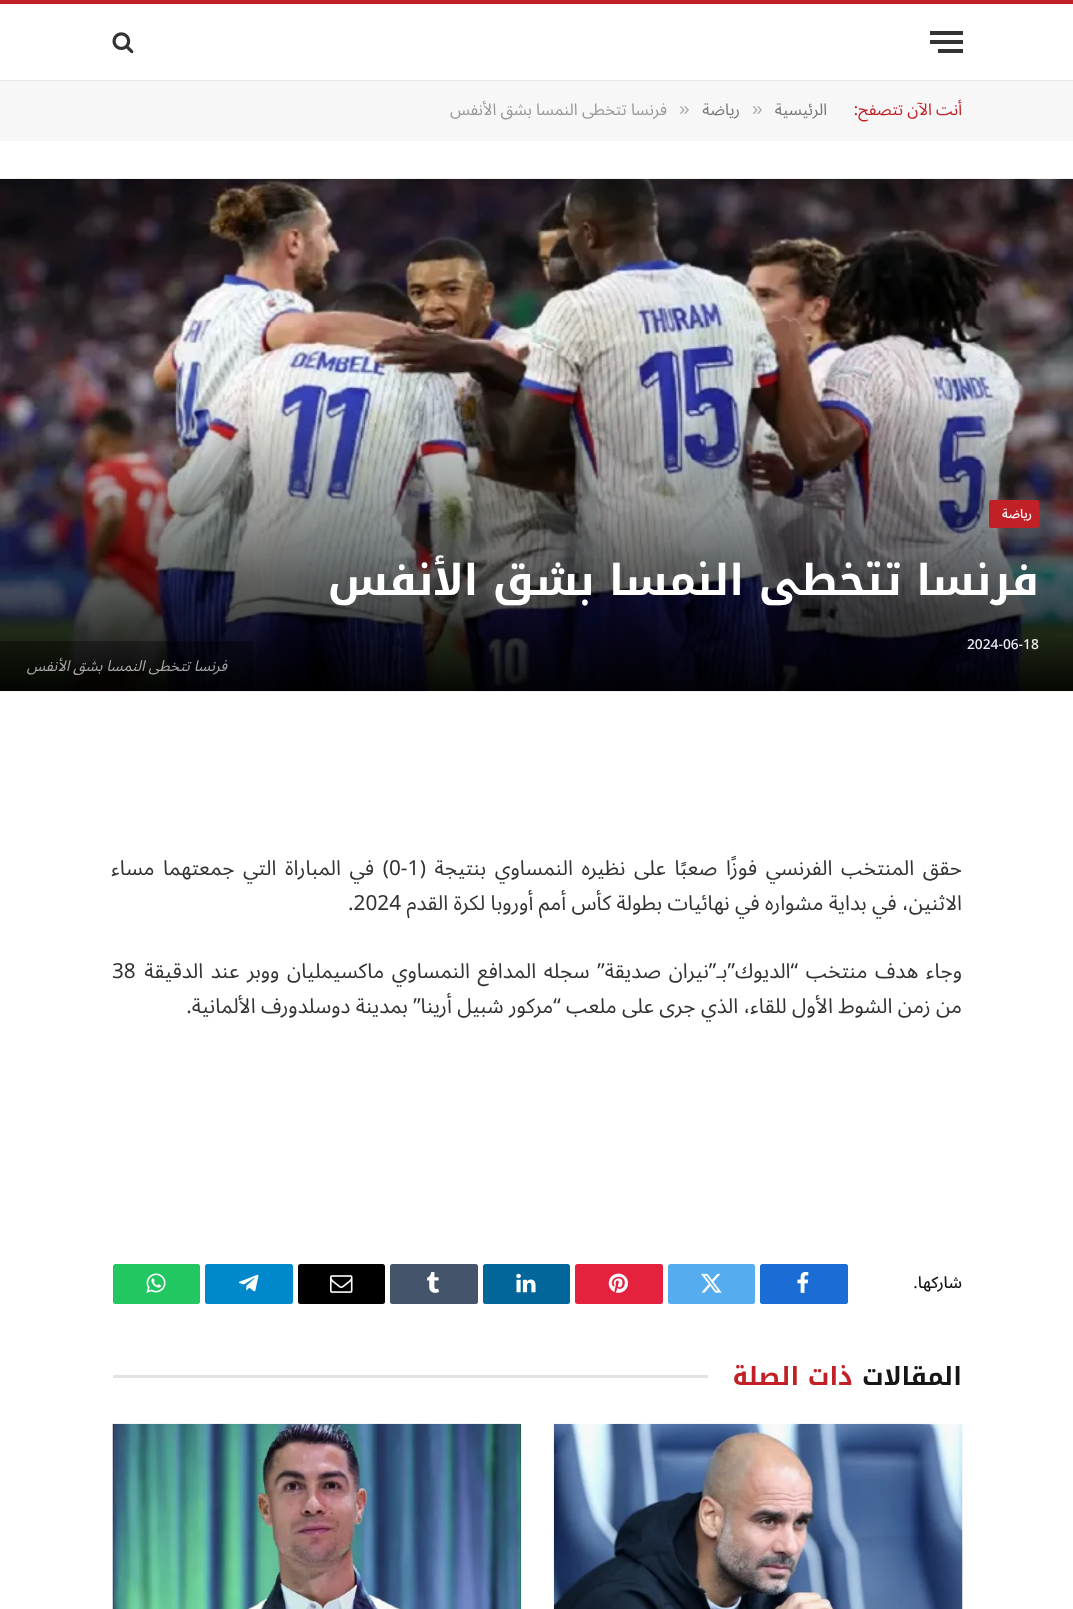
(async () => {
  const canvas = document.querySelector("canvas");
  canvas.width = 1073;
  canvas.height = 1609;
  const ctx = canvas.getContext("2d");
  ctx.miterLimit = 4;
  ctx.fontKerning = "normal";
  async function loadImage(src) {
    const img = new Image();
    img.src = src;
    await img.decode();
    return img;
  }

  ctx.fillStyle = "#ffffff";
  ctx.fillRect(0, 0, 1073, 1609);
  for (const [x, y, w, h, color] of [
    [0, 0, 1073, 4, "#c12026"],
    [0, 80, 1073, 1, "#e8e8e8"],
    [938, 49, 25, 4, "#333333"],
    [930, 31, 33, 4, "#333333"],
    [930, 40, 33, 4, "#333333"],
  ]) {
    ctx.fillStyle = color;
    ctx.fillRect(x, y, w, h);
  }
  ctx.drawImage(await loadImage("img/1.png"), 112, 32, 22, 22);
  ctx.fillStyle = "#f7f7f7";
  ctx.fillRect(0, 81, 1073, 60);
  ctx.drawImage(await loadImage("img/2.png"), 0, 178, 1073, 514);
  ctx.fillStyle = "#c12026";
  ctx.beginPath();
  ctx.roundRect(989, 500, 50, 28, 2.5);
  ctx.fill();
  ctx.fillStyle = "rgba(0, 0, 0, 0.35)";
  ctx.fillRect(0, 641, 253, 50);
  ctx.fillStyle = "#1a6dd4";
  ctx.beginPath();
  ctx.roundRect(760, 1264, 88, 40, 2.5);
  ctx.fill();
  ctx.drawImage(await loadImage("img/3.png"), 797, 1272, 12, 21);
  ctx.fillStyle = "#55acef";
  ctx.beginPath();
  ctx.roundRect(668, 1264, 87, 40, 2.5);
  ctx.fill();
  ctx.drawImage(await loadImage("img/4.png"), 701, 1273, 21, 20);
  ctx.fillStyle = "#e4223e";
  ctx.beginPath();
  ctx.roundRect(575, 1264, 88, 40, 2.5);
  ctx.fill();
  ctx.drawImage(await loadImage("img/5.png"), 608, 1273, 20, 20);
  ctx.fillStyle = "#02669a";
  ctx.beginPath();
  ctx.roundRect(483, 1264, 87, 40, 2.5);
  ctx.fill();
  ctx.drawImage(await loadImage("img/6.png"), 516, 1273, 20, 20);
  ctx.fillStyle = "#44546b";
  ctx.beginPath();
  ctx.roundRect(390, 1264, 88, 40, 2.5);
  ctx.fill();
  ctx.drawImage(await loadImage("img/7.png"), 427, 1272, 12, 21);
  ctx.fillStyle = "#000000";
  ctx.beginPath();
  ctx.roundRect(298, 1264, 87, 40, 2.5);
  ctx.fill();
  ctx.drawImage(await loadImage("img/8.png"), 330, 1275, 23, 18);
  ctx.fillStyle = "#0088cc";
  ctx.beginPath();
  ctx.roundRect(205, 1264, 88, 40, 2.5);
  ctx.fill();
  ctx.drawImage(await loadImage("img/9.png"), 238, 1274, 21, 18);
  ctx.fillStyle = "#23c761";
  ctx.beginPath();
  ctx.roundRect(113, 1264, 87, 40, 2.5);
  ctx.fill();
  ctx.drawImage(await loadImage("img/10.png"), 146, 1273, 20, 20);
  ctx.fillStyle = "#e2e2e2";
  ctx.fillRect(113, 1375, 595, 3);
  ctx.drawImage(await loadImage("img/11.png"), 553, 1423, 410, 186);
  ctx.drawImage(await loadImage("img/12.png"), 112, 1423, 410, 186);
  ctx.direction = "rtl";
  ctx.font = "16.25px Noto Sans Arabic";
  ctx.fillStyle = "#c12026";
  ctx.fillText("أنت الآن تتصفح:", 962, 115);
  ctx.fillStyle = "#777777";
  ctx.fillText("الرئيسية", 827, 115);
  ctx.direction = "ltr";
  ctx.font = "19px Liberation Sans";
  ctx.fillStyle = "#acacac";
  ctx.fillText("»", 752, 115);
  ctx.direction = "rtl";
  ctx.font = "16.25px Noto Sans Arabic";
  ctx.fillStyle = "#777777";
  ctx.fillText("رياضة", 740, 115);
  ctx.direction = "ltr";
  ctx.font = "19px Liberation Sans";
  ctx.fillStyle = "#acacac";
  ctx.fillText("»", 679, 115);
  ctx.direction = "rtl";
  ctx.font = "16.25px Noto Sans Arabic";
  ctx.fillStyle = "#999999";
  ctx.fillText("فرنسا تتخطى النمسا بشق الأنفس", 667, 115);
  ctx.letterSpacing = "0.5px";
  ctx.font = "500 12.5px Noto Sans Arabic";
  ctx.fillStyle = "#ffffff";
  ctx.fillText("رياضة", 1032, 518);
  ctx.letterSpacing = "0px";
  ctx.font = "bold 42.5px Noto Kufi Arabic";
  ctx.fillText("فرنسا تتخطى النمسا بشق الأنفس", 1039, 595);
  ctx.direction = "ltr";
  ctx.font = "500 13.75px Noto Sans Arabic";
  ctx.fillStyle = "#eeeeee";
  ctx.fillText("2024-06-18", 967, 649);
  ctx.direction = "rtl";
  ctx.font = "italic 15px Noto Sans Arabic";
  ctx.fillStyle = "#a6a6a6";
  ctx.fillText("فرنسا تتخطى النمسا بشق الأنفس", 227, 671);
  ctx.wordSpacing = "3.25px";
  ctx.font = "20.75px Noto Sans Arabic";
  ctx.fillStyle = "#333333";
  ctx.fillText("حقق المنتخب الفرنسي فوزًا صعبًا على نظيره النمساوي بنتيجة (", 962, 875);
  ctx.wordSpacing = "0px";
  ctx.direction = "ltr";
  ctx.fillText("0-1", 389, 875);
  ctx.wordSpacing = "3.25px";
  ctx.direction = "rtl";
  ctx.fillText(") في المباراة التي جمعتهما مساء", 389, 875);
  ctx.wordSpacing = "0px";
  ctx.fillText("الاثنين، في بداية مشواره في نهائيات بطولة كأس أمم أوروبا لكرة القدم", 962, 910);
  ctx.direction = "ltr";
  ctx.fillText(".2024", 348, 910);
  ctx.wordSpacing = "2.25px";
  ctx.direction = "rtl";
  ctx.fillText("وجاء هدف منتخب “الديوك”بـ”نيران صديقة” سجله المدافع النمساوي ماكسيمليان ووبر عند الدقيقة", 962, 978);
  ctx.wordSpacing = "0px";
  ctx.direction = "ltr";
  ctx.fillText("38", 112, 978);
  ctx.direction = "rtl";
  ctx.fillText("من زمن الشوط الأول للقاء، الذي جرى على ملعب “مركور شبيل أرينا” بمدينة دوسلدورف الألمانية.", 962, 1013);
  ctx.font = "500 16.25px Noto Sans Arabic";
  ctx.fillStyle = "#161616";
  ctx.fillText("شاركها.", 962, 1288);
  ctx.font = "bold 25px Noto Kufi Arabic";
  ctx.fillText("المقالات", 962, 1385);
  ctx.fillStyle = "#c12026";
  ctx.fillText("ذات الصلة", 853, 1385);
})();
